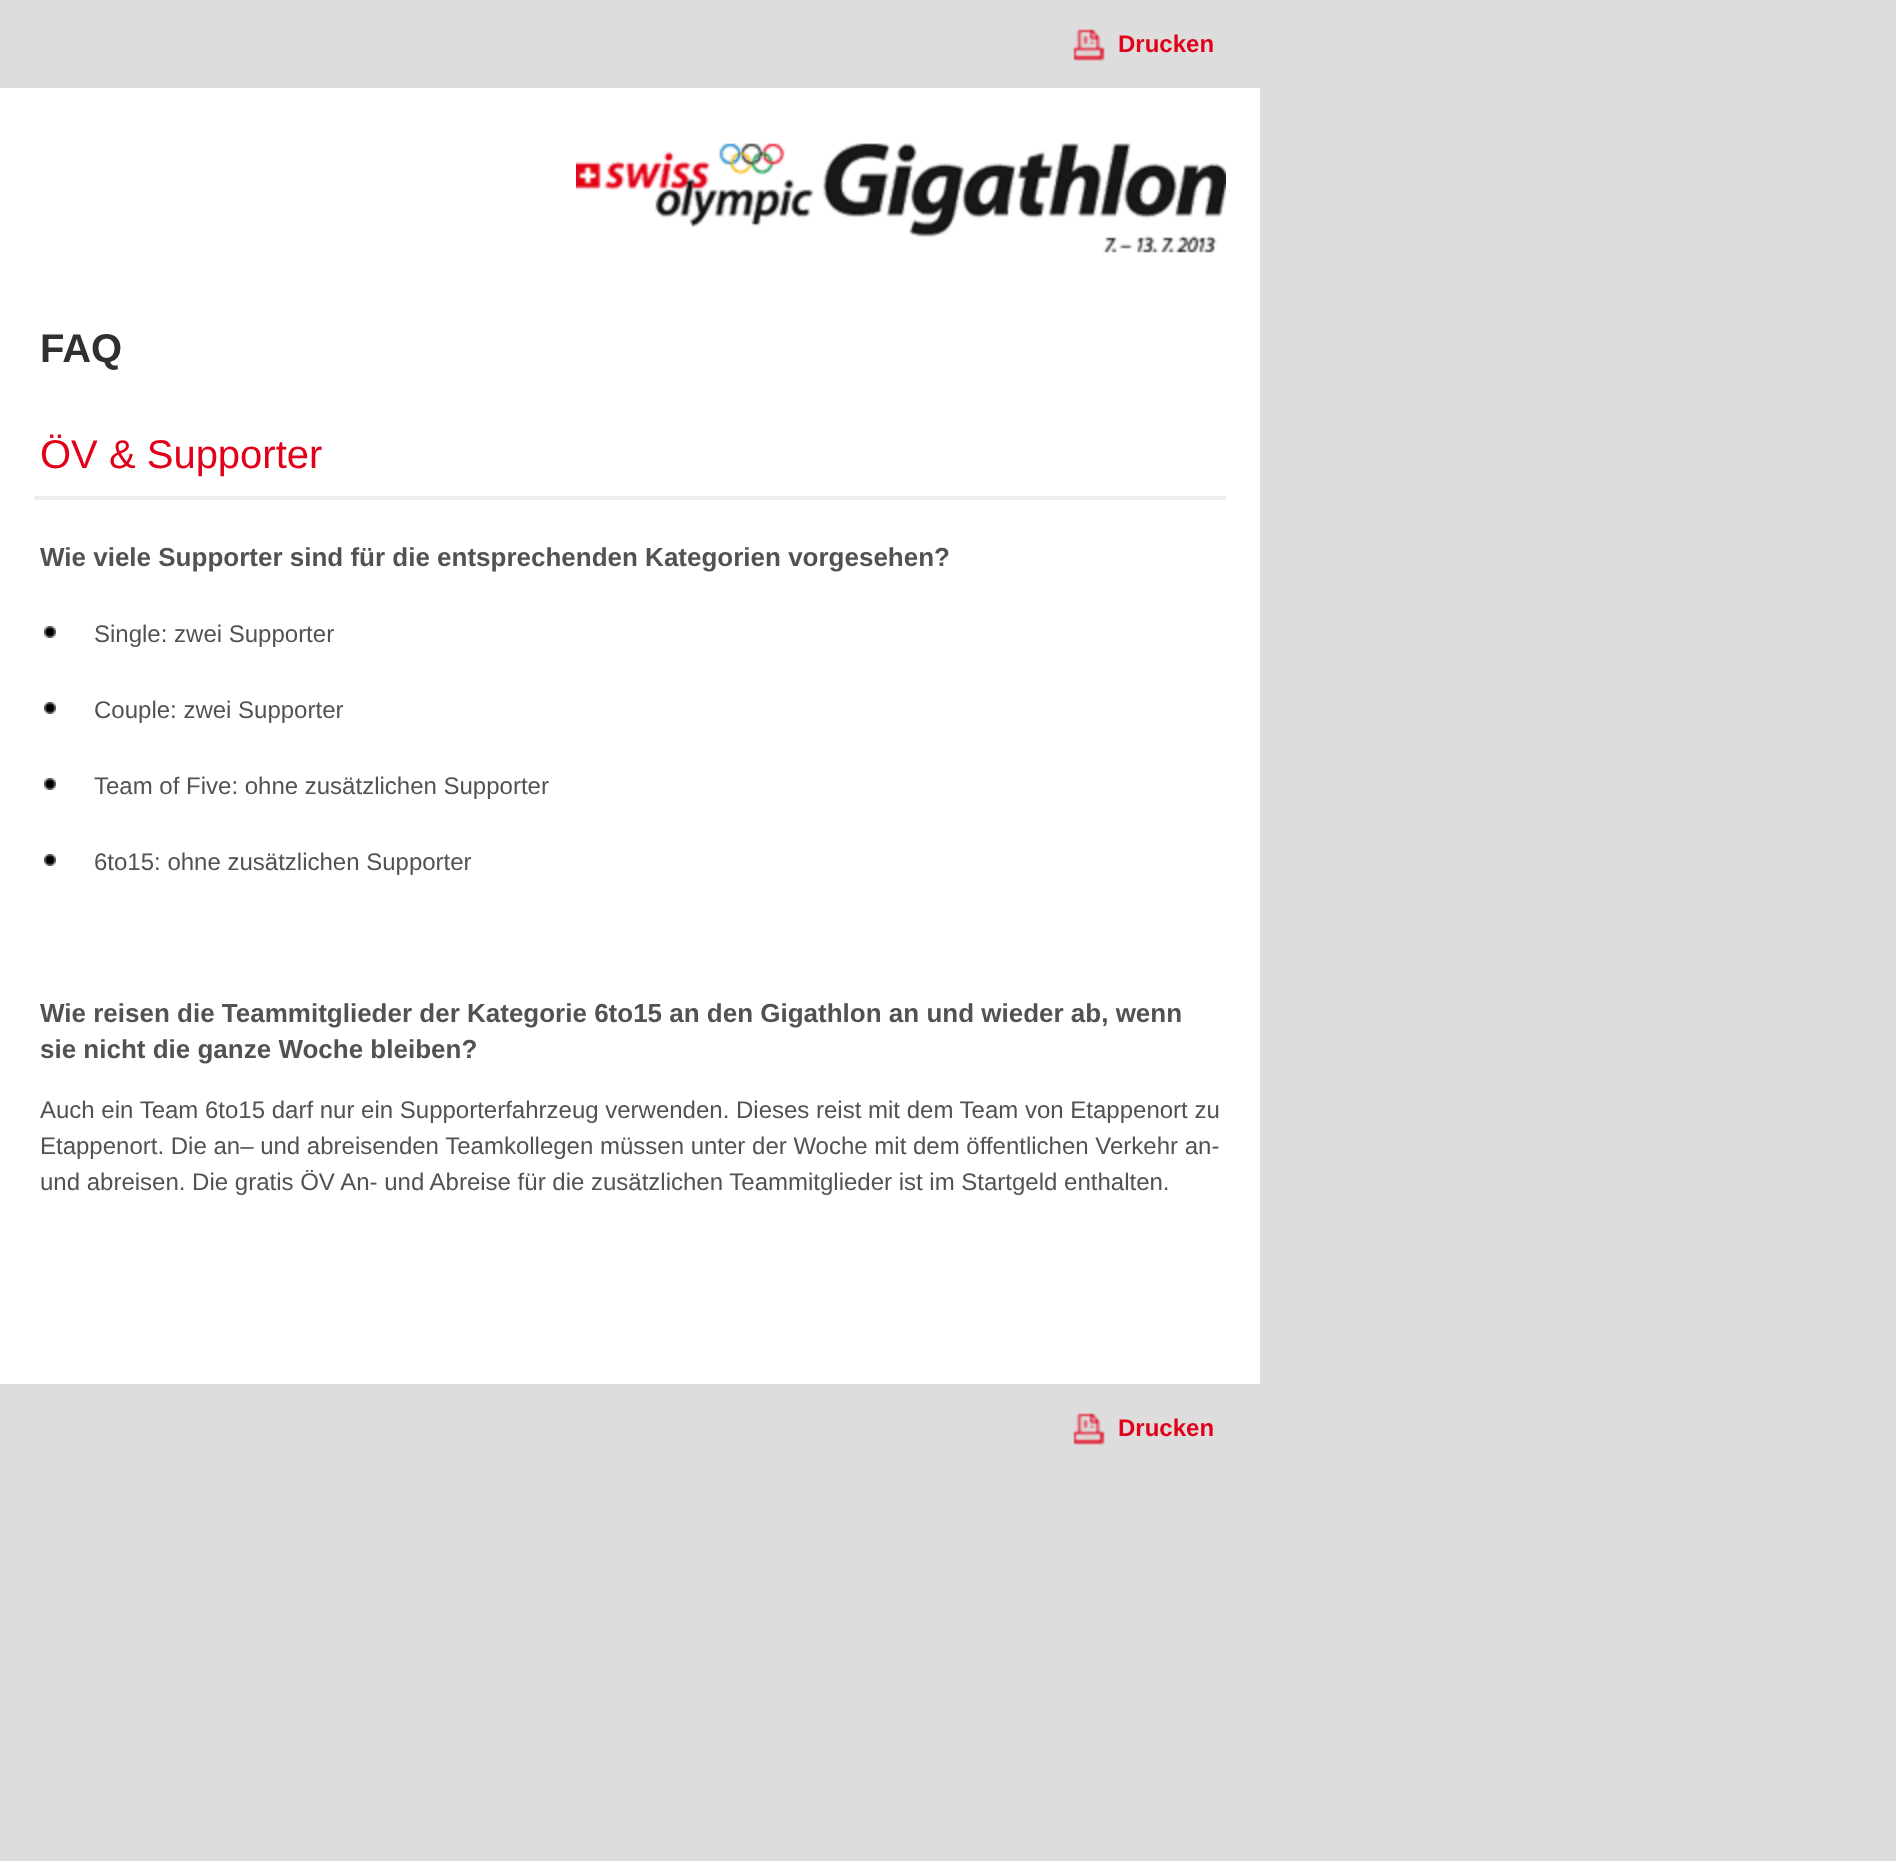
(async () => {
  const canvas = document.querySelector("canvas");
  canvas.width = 1896;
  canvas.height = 1861;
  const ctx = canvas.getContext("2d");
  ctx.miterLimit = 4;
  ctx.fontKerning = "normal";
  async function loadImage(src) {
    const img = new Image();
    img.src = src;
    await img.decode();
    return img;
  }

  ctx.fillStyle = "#dddddd";
  ctx.fillRect(0, 0, 1896, 1861);
  ctx.fillStyle = "#ffffff";
  ctx.fillRect(0, 88, 1260, 1296);
  ctx.drawImage(await loadImage("img/1.png"), 1073, 29, 32, 32);
  ctx.drawImage(await loadImage("img/2.png"), 576, 143, 650, 110);
  ctx.fillStyle = "#ededed";
  ctx.fillRect(34, 496, 1192, 4);
  ctx.drawImage(await loadImage("img/3.png"), 44, 626, 12, 12);
  ctx.drawImage(await loadImage("img/3.png"), 44, 702, 12, 12);
  ctx.drawImage(await loadImage("img/3.png"), 44, 778, 12, 12);
  ctx.drawImage(await loadImage("img/3.png"), 44, 854, 12, 12);
  ctx.drawImage(await loadImage("img/1.png"), 1073, 1413, 32, 32);
  ctx.font = "bold 24px Liberation Sans";
  ctx.fillStyle = "#e2001a";
  ctx.fillText("Drucken", 1118, 52);
  ctx.font = "bold 40px Liberation Sans";
  ctx.fillStyle = "#303030";
  ctx.fillText("FAQ", 40, 362);
  ctx.font = "40px Liberation Sans";
  ctx.fillStyle = "#e2001a";
  ctx.fillText("ÖV & Supporter", 40, 468);
  ctx.font = "bold 26px Liberation Sans";
  ctx.fillStyle = "#525252";
  ctx.fillText("Wie viele Supporter sind für die entsprechenden Kategorien vorgesehen?", 40, 566);
  ctx.font = "24px Liberation Sans";
  for (const [text, x, y] of [
    ["Single: zwei Supporter", 94, 642],
    ["Couple: zwei Supporter", 94, 718],
    ["Team of Five: ohne zusätzlichen Supporter", 94, 794],
    ["6to15: ohne zusätzlichen Supporter", 94, 870],
  ]) {
    ctx.fillText(text, x, y);
  }
  ctx.font = "bold 26px Liberation Sans";
  ctx.fillText("Wie reisen die Teammitglieder der Kategorie 6to15 an den Gigathlon an und wieder ab, wenn", 40, 1022);
  ctx.fillText("sie nicht die ganze Woche bleiben?", 40, 1058);
  ctx.font = "24px Liberation Sans";
  for (const [text, x, y] of [
    ["Auch ein Team 6to15 darf nur ein Supporterfahrzeug verwenden. Dieses reist mit dem Team von Etappenort zu", 40, 1118],
    ["Etappenort. Die an– und abreisenden Teamkollegen müssen unter der Woche mit dem öffentlichen Verkehr an-", 40, 1154],
    ["und abreisen. Die gratis ÖV An- und Abreise für die zusätzlichen Teammitglieder ist im Startgeld enthalten.", 40, 1190],
  ]) {
    ctx.fillText(text, x, y);
  }
  ctx.font = "bold 24px Liberation Sans";
  ctx.fillStyle = "#e2001a";
  ctx.fillText("Drucken", 1118, 1436);
})();
